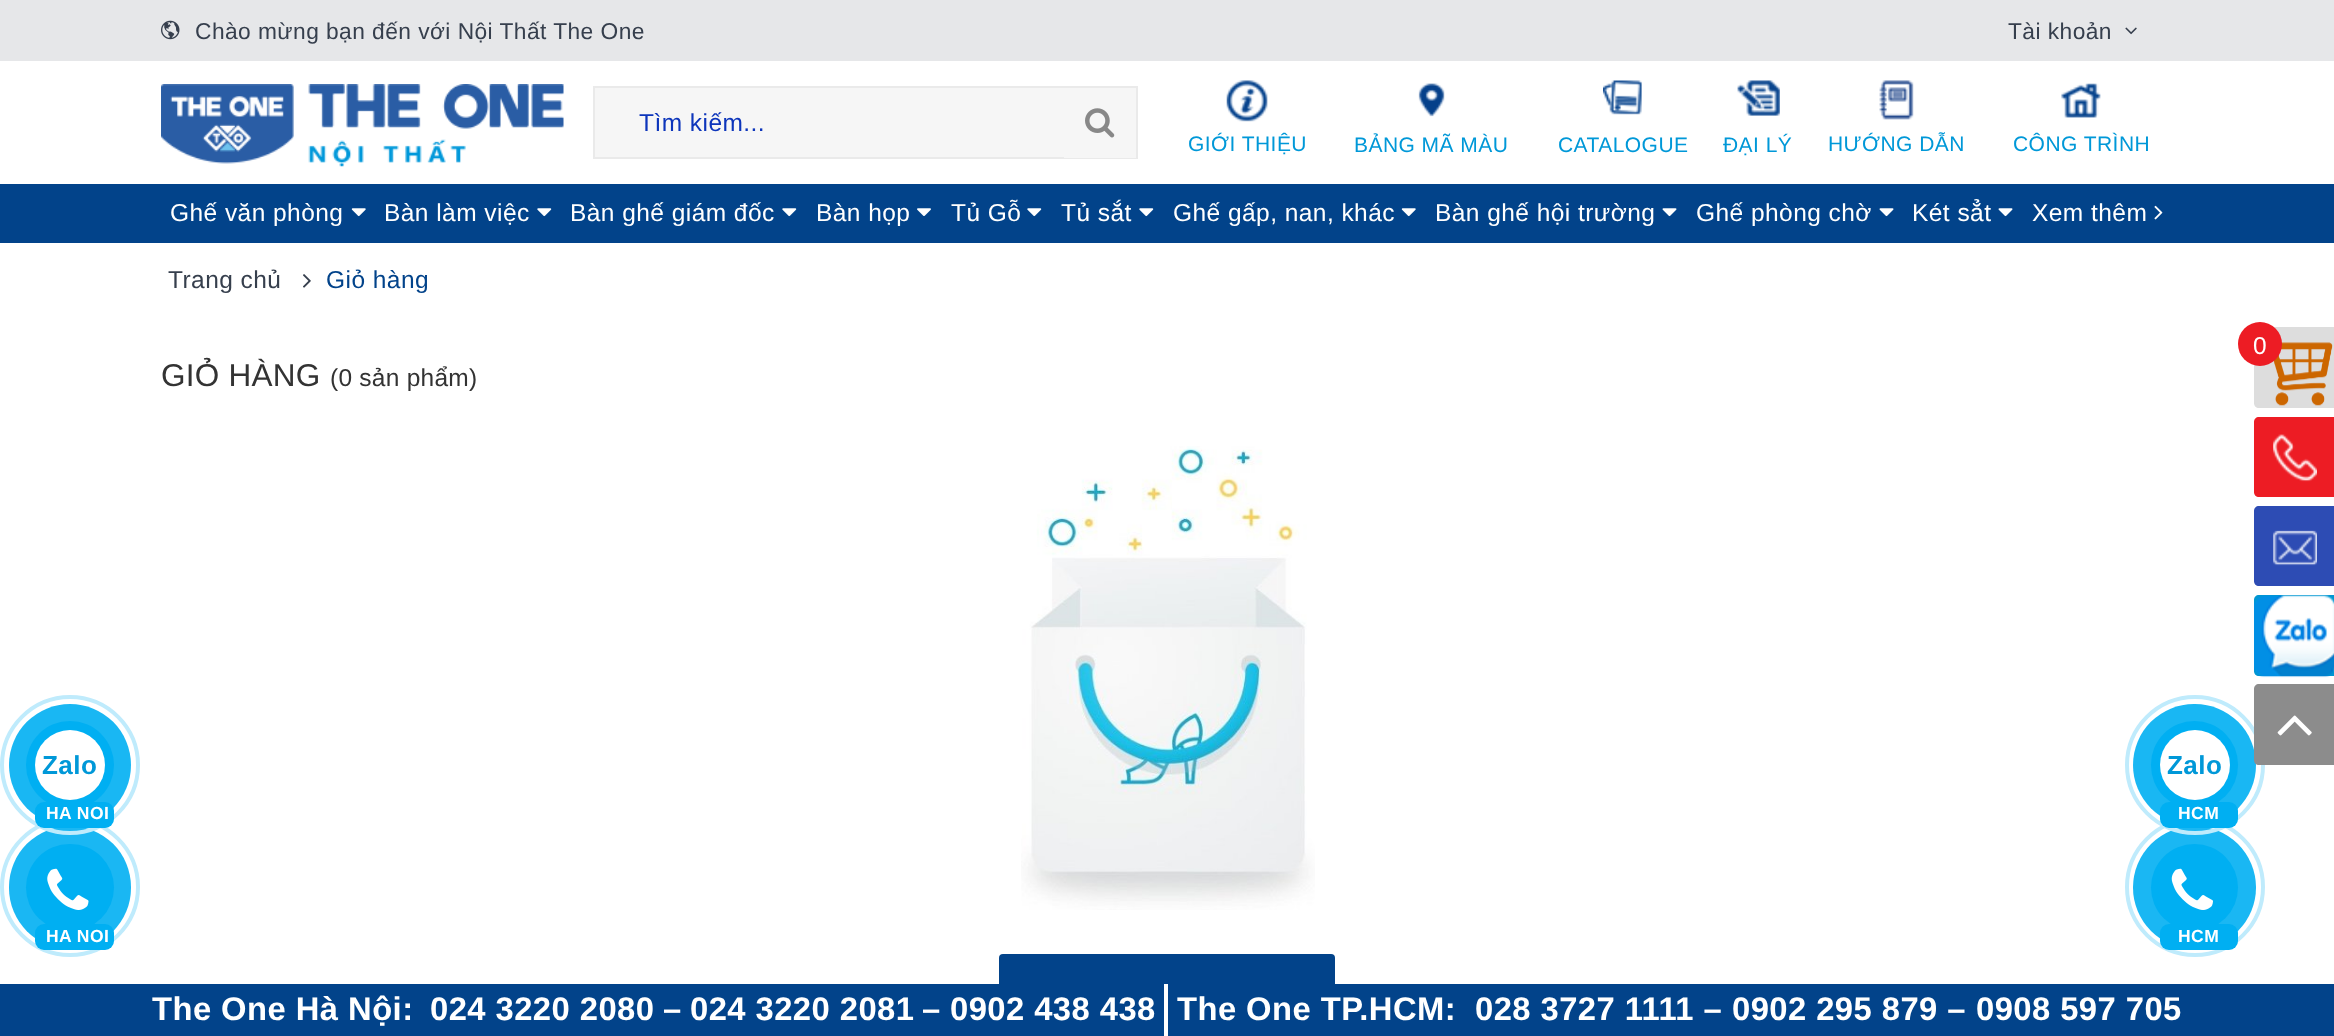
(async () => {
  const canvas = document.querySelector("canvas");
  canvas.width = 2334;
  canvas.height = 1036;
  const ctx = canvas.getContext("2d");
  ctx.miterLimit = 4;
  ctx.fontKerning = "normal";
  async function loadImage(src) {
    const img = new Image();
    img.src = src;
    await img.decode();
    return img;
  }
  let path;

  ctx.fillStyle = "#ffffff";
  ctx.fillRect(0, 0, 2334, 1036);
  ctx.fillStyle = "#e6e7e9";
  ctx.fillRect(0, 0, 2334, 61);
  ctx.drawImage(await loadImage("img/1.png"), 161, 20, 19, 20);
  ctx.drawImage(await loadImage("img/2.png"), 2125, 27, 12, 8);
  ctx.drawImage(await loadImage("img/3.png"), 161, 84, 403, 83);
  ctx.fillStyle = "#f6f6f6";
  ctx.fillRect(595, 88, 469, 69);
  ctx.strokeStyle = "#eaeaea";
  ctx.lineWidth = 2;
  ctx.strokeRect(594, 87, 543, 71);
  ctx.fillRect(1064, 88, 72, 70);
  ctx.drawImage(await loadImage("img/4.png"), 1085, 108, 30, 30);
  ctx.drawImage(await loadImage("img/5.png"), 1226, 80, 42, 42);
  ctx.drawImage(await loadImage("img/6.png"), 1418, 83, 27, 34);
  ctx.drawImage(await loadImage("img/7.png"), 1603, 80, 39, 35);
  ctx.drawImage(await loadImage("img/8.png"), 1737, 80, 43, 36);
  ctx.drawImage(await loadImage("img/9.png"), 1879, 80, 35, 40);
  ctx.drawImage(await loadImage("img/10.png"), 2061, 83, 40, 35);
  ctx.fillStyle = "#02438a";
  ctx.fillRect(0, 184, 2334, 59);
  ctx.drawImage(await loadImage("img/11.png"), 351, 208, 15, 9);
  ctx.drawImage(await loadImage("img/12.png"), 537, 208, 15, 9);
  ctx.drawImage(await loadImage("img/12.png"), 782, 208, 15, 9);
  ctx.drawImage(await loadImage("img/13.png"), 917, 208, 14, 8);
  ctx.drawImage(await loadImage("img/12.png"), 1027, 208, 15, 9);
  ctx.drawImage(await loadImage("img/12.png"), 1139, 208, 15, 9);
  ctx.drawImage(await loadImage("img/11.png"), 1401, 208, 15, 9);
  ctx.drawImage(await loadImage("img/14.png"), 1662, 208, 15, 9);
  ctx.drawImage(await loadImage("img/14.png"), 1879, 208, 15, 9);
  ctx.drawImage(await loadImage("img/14.png"), 1998, 208, 15, 9);
  ctx.drawImage(await loadImage("img/15.png"), 2154, 205, 9, 15);
  ctx.drawImage(await loadImage("img/16.png"), 303, 274, 8, 14);
  ctx.fillStyle = "#dddddd";
  path = new Path2D("M2259 327H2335V408H2259C2256 408 2254 406 2254 403V332C2254 329 2256 327 2259 327Z");
  ctx.fill(path);
  ctx.drawImage(await loadImage("img/17.png"), 2273, 342, 60, 64);
  ctx.fillStyle = "#ed1c24";
  ctx.beginPath();
  ctx.arc(2260, 344, 22, 0, Math.PI * 2);
  ctx.fill();
  path = new Path2D("M2259 417H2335V497H2259C2256 497 2254 495 2254 492V422C2254 419 2256 417 2259 417Z");
  ctx.fill(path);
  ctx.drawImage(await loadImage("img/18.png"), 2273, 434, 44, 48);
  ctx.fillStyle = "#2d4cb4";
  path = new Path2D("M2259 506H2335V586H2259C2256 586 2254 584 2254 581V511C2254 508 2256 506 2259 506Z");
  ctx.fill(path);
  ctx.drawImage(await loadImage("img/19.png"), 2273, 530, 44, 36);
  ctx.fillStyle = "#0197d2";
  path = new Path2D("M2259 595H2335V676H2259C2256 676 2254 674 2254 671V600C2254 597 2256 595 2259 595Z");
  ctx.fill(path);
  ctx.drawImage(await loadImage("img/20.png"), 2254, 595, 80, 83);
  ctx.beginPath();
  ctx.arc(2195, 887, 68, 0, Math.PI * 2);
  ctx.strokeStyle = "#bfebfc";
  ctx.lineWidth = 4;
  ctx.stroke();
  ctx.fillStyle = "#1ab7f3";
  ctx.beginPath();
  ctx.arc(2194.5, 887.5, 61.5, 0, Math.PI * 2);
  ctx.fill();
  ctx.beginPath();
  ctx.arc(2195, 765, 68, 0, Math.PI * 2);
  ctx.stroke();
  ctx.fillStyle = "rgba(0, 175, 242, 0.9)";
  ctx.beginPath();
  ctx.roundRect(2133, 704, 123, 122, 61);
  ctx.fill();
  ctx.fillStyle = "#8c8c8c";
  path = new Path2D("M2259 684H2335V765H2259C2256 765 2254 763 2254 760V689C2254 686 2256 684 2259 684Z");
  ctx.fill(path);
  ctx.drawImage(await loadImage("img/21.png"), 2277, 715, 35, 21);
  ctx.drawImage(await loadImage("img/22.png"), 1021, 446, 294, 464);
  ctx.fillStyle = "#02438a";
  ctx.beginPath();
  ctx.roundRect(999, 954, 336, 80, 4);
  ctx.fill();
  ctx.beginPath();
  ctx.arc(70, 887, 68, 0, Math.PI * 2);
  ctx.stroke();
  ctx.fillStyle = "#1ab7f3";
  ctx.beginPath();
  ctx.roundRect(9, 826, 122, 123, 61);
  ctx.fill();
  ctx.beginPath();
  ctx.arc(70, 765, 68, 0, Math.PI * 2);
  ctx.stroke();
  ctx.fillStyle = "rgba(0, 175, 242, 0.9)";
  ctx.beginPath();
  ctx.arc(70, 765, 61, 0, Math.PI * 2);
  ctx.fill();
  ctx.fillStyle = "#00aff2";
  ctx.beginPath();
  ctx.arc(70, 765, 44, 0, Math.PI * 2);
  ctx.fill();
  ctx.fillStyle = "#ffffff";
  ctx.beginPath();
  ctx.arc(70, 765, 35, 0, Math.PI * 2);
  ctx.fill();
  ctx.fillStyle = "#00aff2";
  ctx.beginPath();
  ctx.roundRect(35, 802, 79, 26, 9);
  ctx.fill();
  ctx.beginPath();
  ctx.roundRect(2151, 721, 87, 88, 43.5);
  ctx.fill();
  ctx.fillStyle = "#ffffff";
  ctx.beginPath();
  ctx.arc(2195, 765, 35, 0, Math.PI * 2);
  ctx.fill();
  ctx.fillStyle = "#00aff2";
  ctx.beginPath();
  ctx.roundRect(2160, 802, 78, 26, 9);
  ctx.fill();
  ctx.beginPath();
  ctx.roundRect(26, 844, 88, 87, 43.5);
  ctx.fill();
  ctx.drawImage(await loadImage("img/23.png"), 47, 868, 42, 42);
  ctx.beginPath();
  ctx.roundRect(35, 924, 79, 26, 9);
  ctx.fill();
  ctx.beginPath();
  ctx.arc(2194.5, 887.5, 43.5, 0, Math.PI * 2);
  ctx.fill();
  ctx.drawImage(await loadImage("img/24.png"), 2171, 868, 42, 42);
  ctx.beginPath();
  ctx.roundRect(2160, 924, 78, 26, 9);
  ctx.fill();
  ctx.fillStyle = "#02438a";
  ctx.fillRect(0, 984, 2334, 52);
  ctx.fillStyle = "#ffffff";
  ctx.fillRect(1164, 984, 4, 52);
  ctx.letterSpacing = "0.45px";
  ctx.font = "22.75px Liberation Sans";
  ctx.fillStyle = "#363f4d";
  ctx.fillText("Chào mừng bạn đến với Nội Thất The One", 195, 39);
  ctx.fillText("Tài khoản", 2008, 39);
  ctx.font = "24.5px Liberation Sans";
  ctx.fillStyle = "#0d35bb";
  ctx.fillText("Tìm kiếm...", 639, 131);
  ctx.font = "21px Liberation Sans";
  ctx.fillStyle = "#0098d8";
  for (const [text, x, y] of [
    ["GIỚI THIỆU", 1188, 151],
    ["BẢNG MÃ MÀU", 1354, 152],
    ["CATALOGUE", 1558, 152],
    ["ĐẠI LÝ", 1723, 152],
    ["HƯỚNG DẪN", 1828, 151],
    ["CÔNG TRÌNH", 2013, 151],
  ]) {
    ctx.fillText(text, x, y);
  }
  ctx.font = "24.5px Liberation Sans";
  ctx.fillStyle = "#ffffff";
  for (const [text, x, y] of [
    ["Ghế văn phòng", 170, 221],
    ["Bàn làm việc", 384, 221],
    ["Bàn ghế giám đốc", 570, 221],
    ["Bàn họp", 816, 221],
    ["Tủ Gỗ", 951, 221],
    ["Tủ sắt", 1061, 221],
    ["Ghế gấp, nan, khác", 1173, 221],
    ["Bàn ghế hội trường", 1435, 221],
    ["Ghế phòng chờ", 1696, 221],
    ["Két sẳt", 1912, 221],
    ["Xem thêm", 2032, 221],
  ]) {
    ctx.fillText(text, x, y);
  }
  ctx.fillStyle = "#363f4d";
  ctx.fillText("Trang chủ", 168, 288);
  ctx.fillStyle = "#02438a";
  ctx.fillText("Giỏ hàng", 326, 288);
  ctx.fillStyle = "#ffffff";
  ctx.fillText("0", 2253, 354);
  ctx.letterSpacing = "0.25px";
  ctx.font = "31.5px Liberation Sans";
  ctx.fillStyle = "#333333";
  ctx.fillText("GIỎ HÀNG", 161, 386);
  ctx.font = "24.5px Liberation Sans";
  ctx.fillText("(0 sản phẩm)", 330, 386);
  ctx.letterSpacing = "0.45px";
  ctx.font = "bold 26px Liberation Sans";
  ctx.fillStyle = "#0098d8";
  ctx.fillText("Zalo", 42, 774);
  ctx.font = "bold 17.5px Liberation Sans";
  ctx.fillStyle = "#ffffff";
  ctx.fillText("HA NOI", 46, 819);
  ctx.font = "bold 26px Liberation Sans";
  ctx.fillStyle = "#0098d8";
  ctx.fillText("Zalo", 2167, 774);
  ctx.font = "bold 17.5px Liberation Sans";
  ctx.fillStyle = "#ffffff";
  for (const [text, x, y] of [
    ["HCM", 2178, 819],
    ["HA NOI", 46, 942],
    ["HCM", 2178, 942],
  ]) {
    ctx.fillText(text, x, y);
  }
  ctx.font = "bold 32.75px Liberation Sans";
  for (const [text, x, y] of [
    ["The One Hà Nội:", 152, 1020],
    ["024 3220 2080", 430, 1020],
    ["–", 663, 1020],
    ["024 3220 2081", 690, 1020],
    ["–", 922, 1020],
    ["0902 438 438", 950, 1020],
    ["The One TP.HCM:", 1177, 1020],
    ["028 3727 1111 –", 1475, 1020],
    ["0902 295 879 –", 1732, 1020],
    ["0908 597 705", 1976, 1020],
  ]) {
    ctx.fillText(text, x, y);
  }
})();
